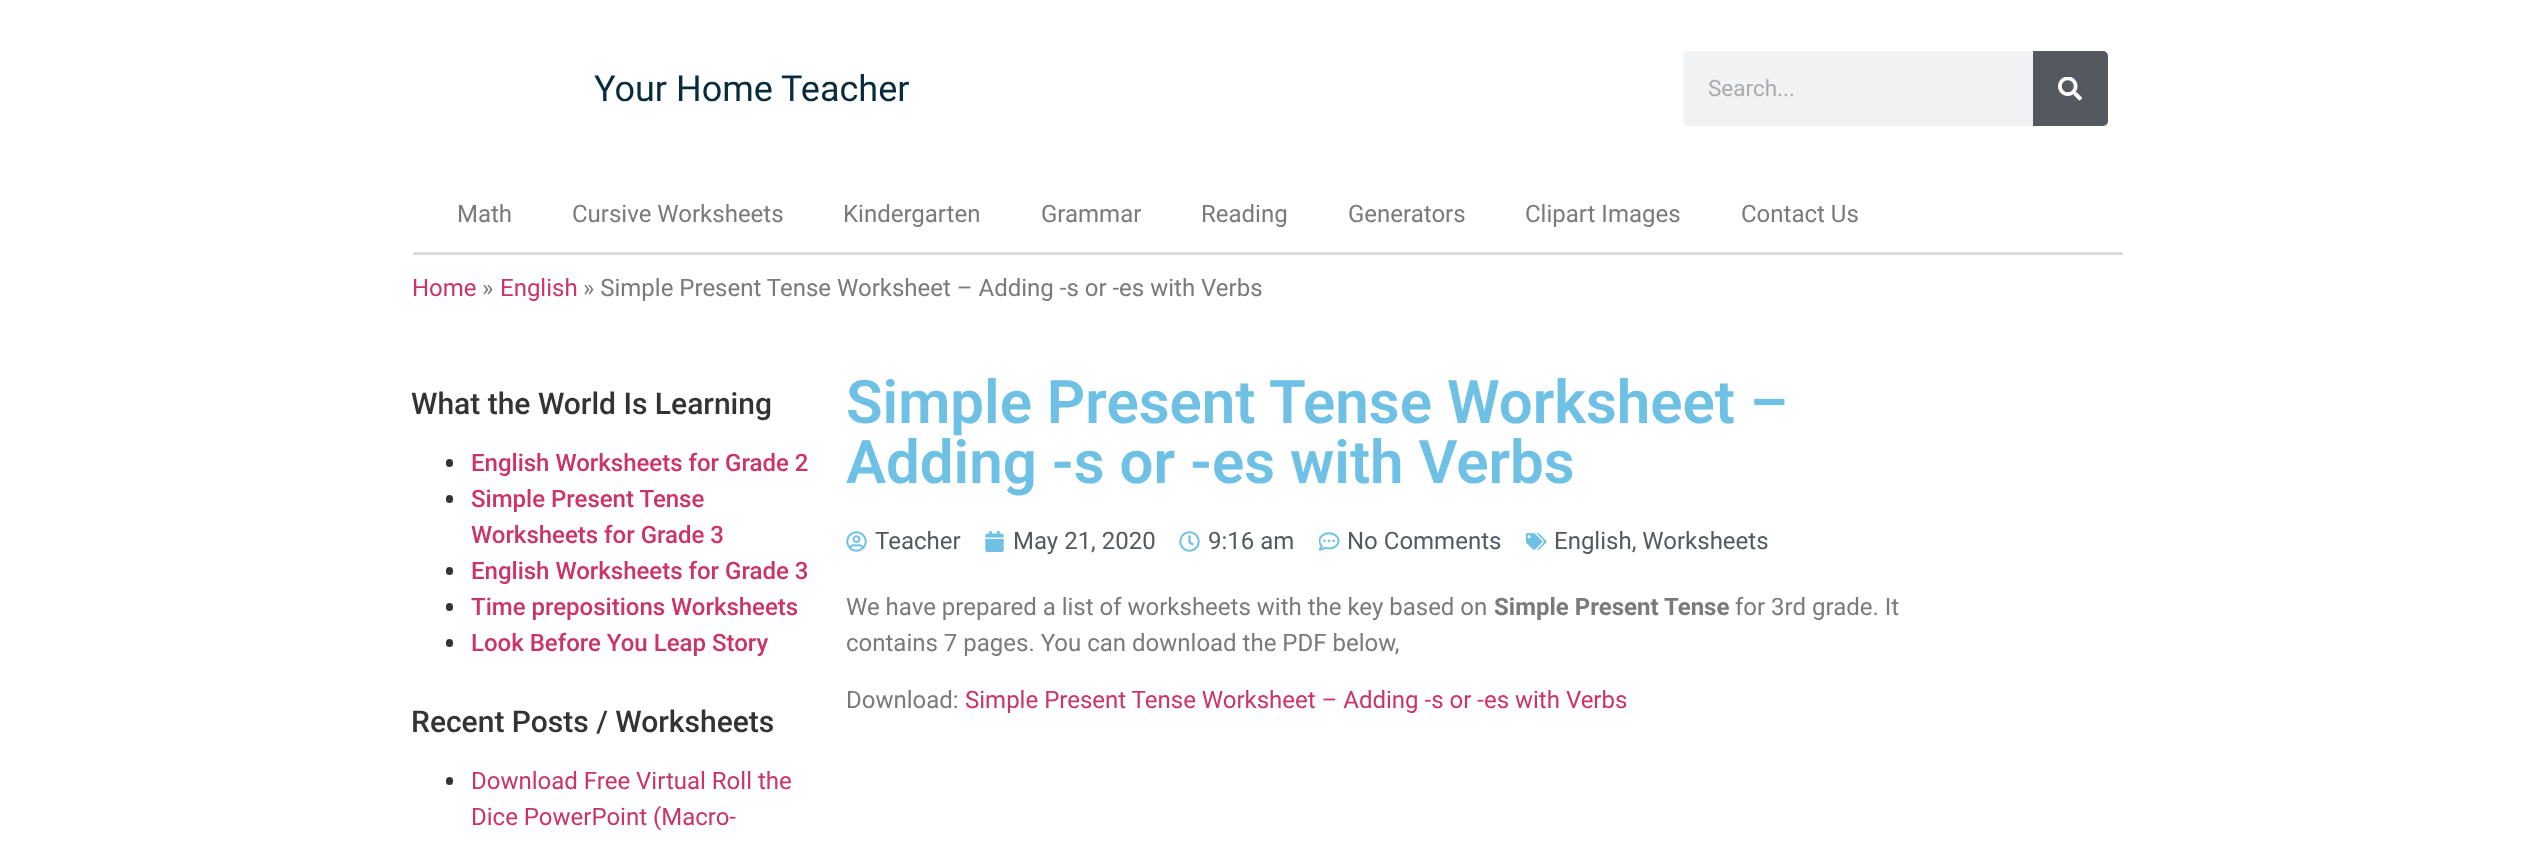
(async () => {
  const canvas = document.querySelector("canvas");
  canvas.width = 2533;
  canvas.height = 851;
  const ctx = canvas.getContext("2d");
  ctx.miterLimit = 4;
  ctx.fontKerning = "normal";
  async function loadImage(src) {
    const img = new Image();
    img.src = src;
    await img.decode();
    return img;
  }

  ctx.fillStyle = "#ffffff";
  ctx.fillRect(0, 0, 2533, 851);
  ctx.fillStyle = "#f1f2f3";
  ctx.beginPath();
  ctx.roundRect(1683, 51, 425, 75, 5);
  ctx.fill();
  ctx.fillStyle = "#54595f";
  ctx.beginPath();
  ctx.roundRect(2033, 51, 75, 75, [0, 5, 5, 0]);
  ctx.fill();
  ctx.drawImage(await loadImage("img/1.png"), 2058, 77, 24, 24);
  ctx.fillStyle = "#dbdbdb";
  ctx.fillRect(413, 252, 1710, 3);
  ctx.fillStyle = "#333333";
  ctx.beginPath();
  ctx.roundRect(446, 459, 7, 8, 3.5);
  ctx.fill();
  ctx.beginPath();
  ctx.roundRect(446, 495, 7, 8, 3.5);
  ctx.fill();
  ctx.beginPath();
  ctx.roundRect(446, 567, 7, 8, 3.5);
  ctx.fill();
  ctx.beginPath();
  ctx.roundRect(446, 603, 7, 8, 3.5);
  ctx.fill();
  ctx.beginPath();
  ctx.roundRect(446, 639, 7, 8, 3.5);
  ctx.fill();
  ctx.beginPath();
  ctx.roundRect(446, 777, 7, 8, 3.5);
  ctx.fill();
  ctx.drawImage(await loadImage("img/2.png"), 846, 531, 21, 21);
  ctx.drawImage(await loadImage("img/3.png"), 985, 531, 19, 21);
  ctx.drawImage(await loadImage("img/4.png"), 1179, 531, 21, 21);
  ctx.drawImage(await loadImage("img/5.png"), 1319, 532, 21, 19);
  ctx.drawImage(await loadImage("img/6.png"), 1526, 533, 21, 17);
  ctx.font = "36px Roboto";
  ctx.fillStyle = "#082c3c";
  ctx.fillText("Your Home Teacher", 594, 101);
  ctx.font = "22.5px Roboto";
  ctx.fillStyle = "#aaaaaa";
  ctx.fillText("Search...", 1708, 96);
  ctx.font = "24px Roboto";
  ctx.fillStyle = "#7a7a7a";
  for (const [text, x, y] of [
    ["Math", 457, 222],
    ["Cursive Worksheets", 572, 222],
    ["Kindergarten", 843, 222],
    ["Grammar", 1041, 222],
    ["Reading", 1201, 222],
    ["Generators", 1348, 222],
    ["Clipart Images", 1525, 222],
    ["Contact Us", 1741, 222],
  ]) {
    ctx.fillText(text, x, y);
  }
  ctx.fillStyle = "#cc3366";
  ctx.fillText("Home", 412, 296);
  ctx.fillStyle = "#7a7a7a";
  ctx.fillText("»", 482, 296);
  ctx.fillStyle = "#cc3366";
  ctx.fillText("English", 500, 296);
  ctx.fillStyle = "#7a7a7a";
  ctx.fillText("» Simple Present Tense Worksheet – Adding -s or -es with Verbs", 583, 296);
  ctx.font = "500 30px Roboto";
  ctx.fillStyle = "#333333";
  ctx.fillText("What the World Is Learning", 411, 414);
  ctx.font = "500 24px Roboto";
  ctx.fillStyle = "#cc3366";
  for (const [text, x, y] of [
    ["English Worksheets for Grade 2", 471, 471],
    ["Simple Present Tense", 471, 507],
    ["Worksheets for Grade 3", 471, 543],
    ["English Worksheets for Grade 3", 471, 579],
    ["Time prepositions Worksheets", 471, 615],
    ["Look Before You Leap Story", 471, 651],
  ]) {
    ctx.fillText(text, x, y);
  }
  ctx.font = "500 30px Roboto";
  ctx.fillStyle = "#333333";
  ctx.fillText("Recent Posts / Worksheets", 411, 732);
  ctx.font = "24px Roboto";
  ctx.fillStyle = "#cc3366";
  ctx.fillText("Download Free Virtual Roll the", 471, 789);
  ctx.fillText("Dice PowerPoint (Macro-", 471, 825);
  ctx.font = "600 60px Roboto";
  ctx.fillStyle = "#6ec1e4";
  ctx.fillText("Simple Present Tense Worksheet –", 846, 423);
  ctx.fillText("Adding -s or -es with Verbs", 846, 483);
  ctx.font = "24px Roboto";
  ctx.fillStyle = "#54595f";
  for (const [text, x, y] of [
    ["Teacher", 875, 549],
    ["May 21, 2020", 1013, 549],
    ["9:16 am", 1208, 549],
    ["No Comments", 1347, 549],
    ["English, Worksheets", 1554, 549],
  ]) {
    ctx.fillText(text, x, y);
  }
  ctx.fillStyle = "#7a7a7a";
  ctx.fillText("We have prepared a list of worksheets with the key based on", 846, 615);
  ctx.font = "bold 24px Roboto";
  ctx.fillText("Simple Present Tense", 1494, 615);
  ctx.font = "24px Roboto";
  for (const [text, x, y] of [
    ["for 3rd grade. It", 1735, 615],
    ["contains 7 pages. You can download the PDF below,", 846, 651],
    ["Download:", 846, 708],
  ]) {
    ctx.fillText(text, x, y);
  }
  ctx.fillStyle = "#cc3366";
  ctx.fillText("Simple Present Tense Worksheet – Adding -s or -es with Verbs", 965, 708);
})();
